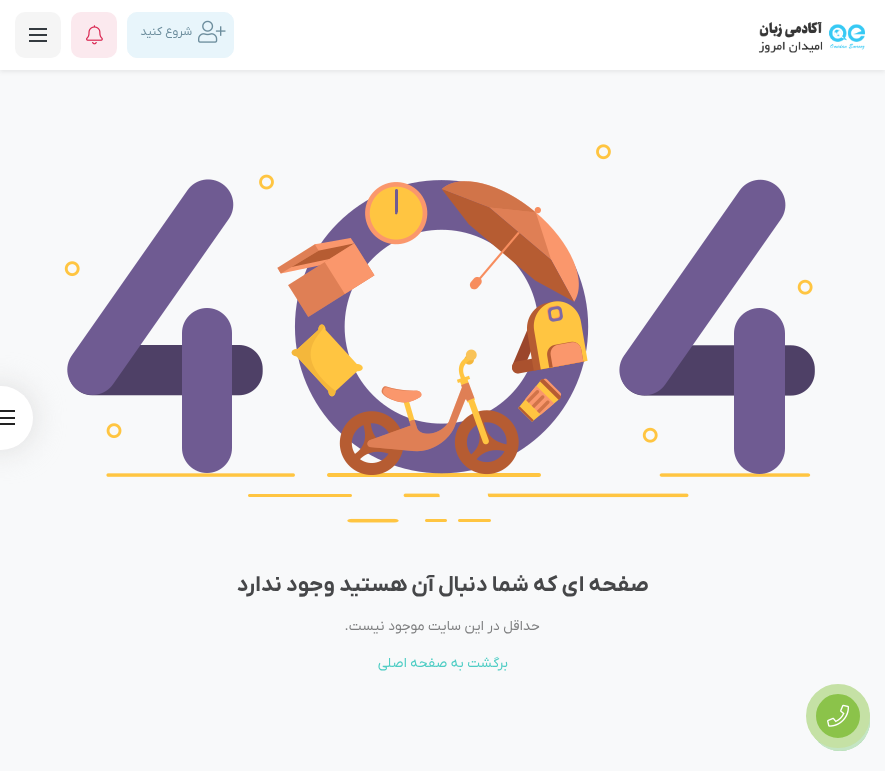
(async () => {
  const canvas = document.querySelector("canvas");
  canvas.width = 885;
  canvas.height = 771;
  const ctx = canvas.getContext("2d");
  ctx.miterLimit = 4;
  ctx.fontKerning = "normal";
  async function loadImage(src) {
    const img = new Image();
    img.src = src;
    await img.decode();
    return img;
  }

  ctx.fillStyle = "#f8f9fa";
  ctx.fillRect(0, 0, 885, 771);
  ctx.fillStyle = "rgba(0, 0, 0, 0.07)";
  ctx.filter = "blur(2px)";
  ctx.beginPath();
  ctx.rect(0, 2, 885, 70);
  ctx.fill();
  ctx.filter = "none";
  ctx.fillStyle = "#ffffff";
  ctx.fillRect(0, 0, 885, 70);
  ctx.drawImage(await loadImage("img/1.png"), 758, 22, 107, 31);
  ctx.fillStyle = "#e8f5fb";
  ctx.beginPath();
  ctx.roundRect(127.5, 12.5, 106, 45, 9.5);
  ctx.fill();
  ctx.strokeStyle = "#e8f5fb";
  ctx.stroke();
  ctx.drawImage(await loadImage("img/2.png"), 198, 20, 28, 23);
  ctx.fillStyle = "#fbe9ee";
  ctx.beginPath();
  ctx.roundRect(71, 12, 46, 46, 10);
  ctx.fill();
  ctx.drawImage(await loadImage("img/3.png"), 86, 25, 17, 20);
  ctx.fillStyle = "#f5f5f5";
  ctx.beginPath();
  ctx.roundRect(15, 12, 46, 46, 10);
  ctx.fill();
  for (const [x, y, w, h, color] of [
    [29, 34, 18, 2, "#343a40"],
    [29, 28, 18, 2, "#343a40"],
    [29, 40, 18, 2, "#343a40"],
  ]) {
    ctx.fillStyle = color;
    ctx.fillRect(x, y, w, h);
  }
  ctx.drawImage(await loadImage("img/4.png"), 64, 144, 751, 379);
  ctx.fillStyle = "#dcdcdc";
  ctx.filter = "blur(15px)";
  ctx.beginPath();
  ctx.roundRect(-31, 386, 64, 64, 32);
  ctx.fill();
  ctx.filter = "none";
  ctx.fillStyle = "#ffffff";
  ctx.beginPath();
  ctx.arc(1, 418, 32, 0, Math.PI * 2);
  ctx.fill();
  for (const [x, y, w, h, color] of [
    [0, 410, 15, 2, "#222222"],
    [0, 417, 15, 2, "#222222"],
    [0, 423, 15, 2, "#222222"],
  ]) {
    ctx.fillStyle = color;
    ctx.fillRect(x, y, w, h);
  }
  ctx.fillStyle = "#5cb85c";
  ctx.beginPath();
  ctx.roundRect(810, 689, 60, 62, 30);
  ctx.fill();
  ctx.beginPath();
  ctx.roundRect(813, 692, 54, 56, 27);
  ctx.strokeStyle = "rgba(255, 255, 255, 0.64)";
  ctx.lineWidth = 6;
  ctx.stroke();
  ctx.fillStyle = "#8bc34a";
  ctx.beginPath();
  ctx.arc(838, 716, 27, 0, Math.PI * 2);
  ctx.fill();
  ctx.strokeStyle = "#c5e1a5";
  ctx.lineWidth = 10;
  ctx.stroke();
  ctx.drawImage(await loadImage("img/5.png"), 827, 704, 23, 23);
  ctx.direction = "rtl";
  ctx.font = "12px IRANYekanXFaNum";
  ctx.fillStyle = "#6c8d9d";
  ctx.fillText("شروع کنید", 192, 35);
  ctx.font = "bold 22px IRANYekanXFaNum";
  ctx.fillStyle = "#464749";
  ctx.fillText("صفحه ای که شما دنبال آن هستید وجود ندارد", 649, 591);
  ctx.font = "14px IRANYekanXFaNum";
  ctx.fillStyle = "#7d7e7f";
  ctx.fillText("حداقل در این سایت موجود نیست.", 540, 630);
  ctx.fillStyle = "#4ecdc4";
  ctx.fillText("برگشت به صفحه اصلی", 508, 667);
})();
